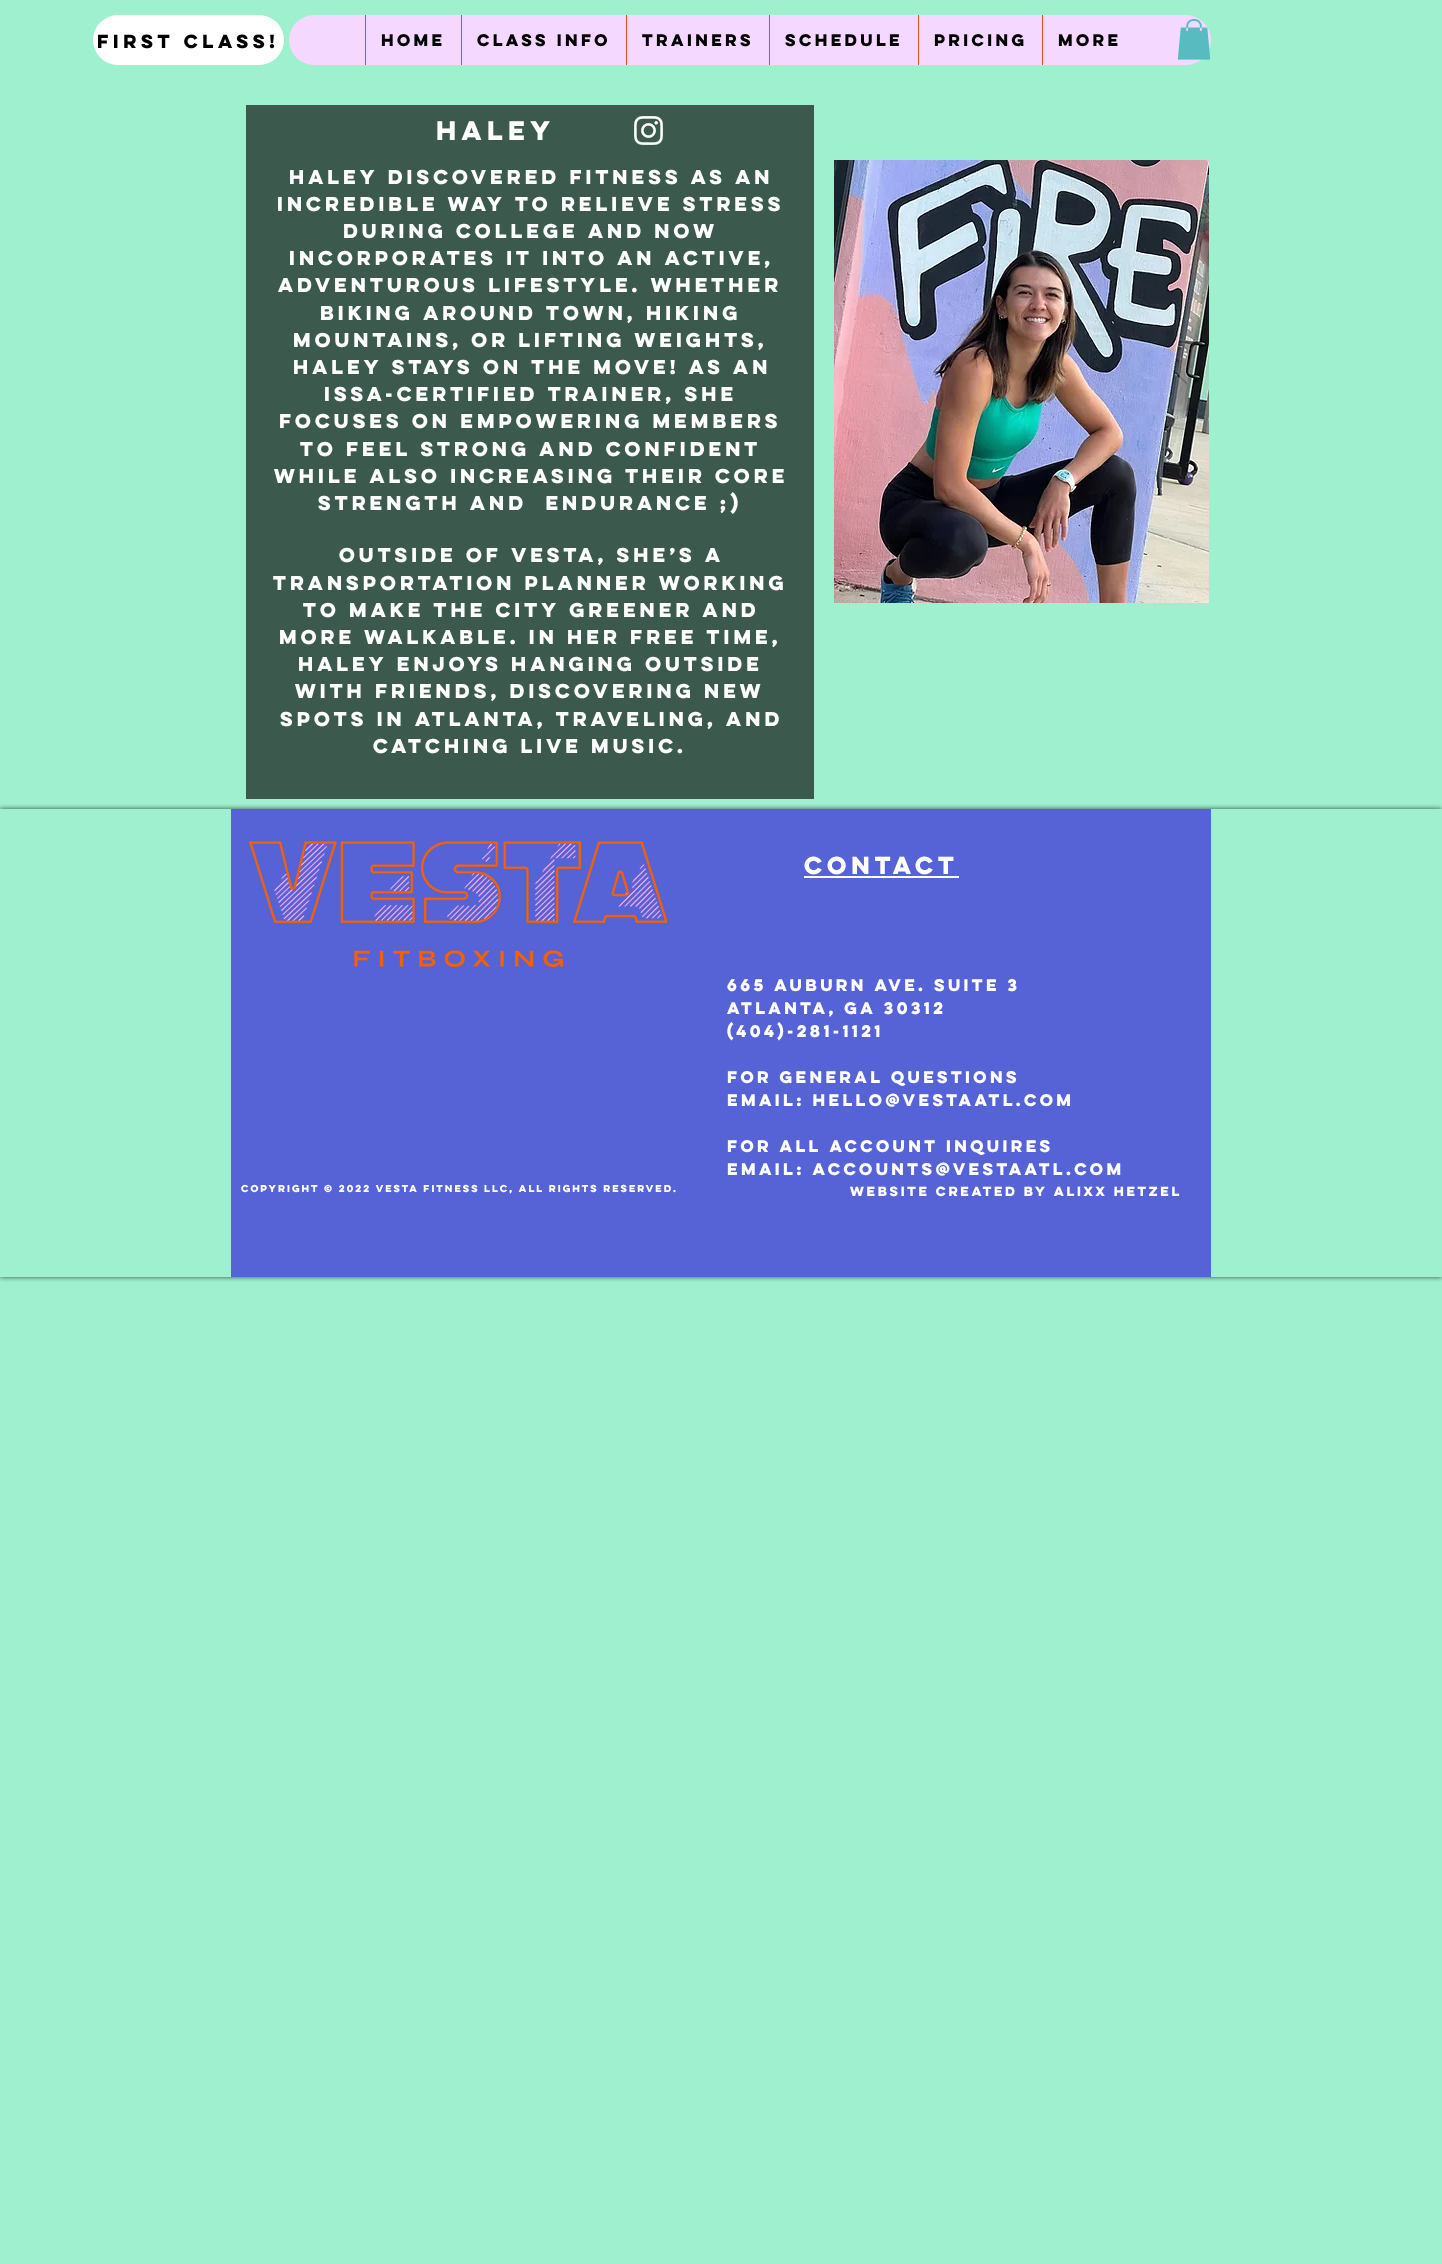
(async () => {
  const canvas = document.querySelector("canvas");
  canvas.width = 1442;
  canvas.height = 2264;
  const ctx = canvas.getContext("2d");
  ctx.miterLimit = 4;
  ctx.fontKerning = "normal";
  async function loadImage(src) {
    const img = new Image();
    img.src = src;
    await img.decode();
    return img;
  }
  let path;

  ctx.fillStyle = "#9ef0cf";
  ctx.fillRect(0, 0, 1442, 2264);
  ctx.fillStyle = "#ffffff";
  ctx.beginPath();
  ctx.roundRect(93, 15, 191, 50, 25);
  ctx.fill();
  ctx.fillStyle = "#f4d8ff";
  ctx.beginPath();
  ctx.roundRect(289, 15, 922, 50, 25);
  ctx.fill();
  for (const [x, y, w, h, color] of [
    [365, 15, 1, 50, "#de5021"],
    [461, 15, 1, 50, "#de5021"],
    [626, 15, 1, 50, "#de5021"],
    [769, 15, 1, 50, "#de5021"],
    [918, 15, 1, 50, "#de5021"],
    [1042, 15, 1, 50, "#de5021"],
  ]) {
    ctx.fillStyle = color;
    ctx.fillRect(x, y, w, h);
  }
  ctx.drawImage(await loadImage("img/1.png"), 1177, 19, 34, 41);
  ctx.fillStyle = "#3b594d";
  ctx.fillRect(246, 105, 568, 694);
  ctx.drawImage(await loadImage("img/2.png"), 634, 116, 29, 29);
  ctx.drawImage(await loadImage("img/3.png"), 834, 160, 375, 443);
  ctx.save();
  path = new Path2D("M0 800H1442V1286H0ZM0 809H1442V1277H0Z");
  ctx.clip(path, "evenodd");
  ctx.fillStyle = "rgba(0, 0, 0, 0.7)";
  ctx.filter = "blur(2.5px)";
  ctx.beginPath();
  ctx.rect(0, 809, 1442, 468);
  ctx.fill();
  ctx.filter = "none";
  ctx.restore();
  ctx.fillStyle = "#5563d7";
  ctx.fillRect(231, 809, 980, 468);
  ctx.drawImage(await loadImage("img/4.png"), 249, 839, 418, 128);
  ctx.fillStyle = "#ffffff";
  ctx.fillRect(804, 876, 155, 2);
  ctx.letterSpacing = "0.8px";
  ctx.font = "bold 17px 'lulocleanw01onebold'";
  ctx.fillStyle = "#000000";
  ctx.fillText("first class!", 97, 48);
  ctx.letterSpacing = "0px";
  ctx.font = "bold 15px 'lulocleanw01onebold'";
  for (const [text, x, y] of [
    ["Home", 381, 46],
    ["Class Info", 477, 46],
    ["Trainers", 642, 46],
    ["Schedule", 785, 46],
    ["Pricing", 934, 46],
    ["More", 1058, 46],
  ]) {
    ctx.fillText(text, x, y);
  }
  ctx.font = "bold 24px 'lulocleanw01onebold'";
  ctx.fillStyle = "#ffffff";
  ctx.fillText("haley", 436, 140);
  ctx.font = "bold 18px 'lulocleanw01onebold'";
  for (const [text, x, y] of [
    ["Haley discovered fitness as an", 289, 184],
    ["incredible way to relieve stress", 277, 211],
    ["during college and now", 343, 238],
    ["incorporates it into an active,", 289, 265],
    ["adventurous lifestyle. Whether", 278, 292],
    ["biking around town, hiking", 320, 320],
    ["mountains, or lifting weights,", 293, 347],
    ["Haley stays on the move! As an", 293, 374],
    ["ISSA-certified trainer, she", 324, 401],
    ["focuses on empowering members", 279, 428],
    ["to feel strong and confident", 300, 456],
    ["while also increasing their core", 274, 483],
    ["strength and  endurance ;)", 318, 510],
    ["Outside of Vesta, she’s a", 339, 562],
    ["transportation planner working", 273, 590],
    ["to make the city greener and", 303, 617],
    ["more walkable. In her free time,", 279, 644],
    ["Haley enjoys hanging outside", 298, 671],
    ["with friends, discovering new", 295, 698],
    ["spots in Atlanta, traveling, and", 280, 726],
    ["catching live music.", 373, 753],
  ]) {
    ctx.fillText(text, x, y);
  }
  ctx.font = "bold 22px 'lulocleanw01onebold'";
  ctx.fillText("Contact", 804, 874);
  ctx.font = "bold 15px 'lulocleanw01onebold'";
  for (const [text, x, y] of [
    ["665 AUBURN AVE. SUITE 3", 727, 991],
    ["Atlanta, GA 30312", 727, 1014],
    ["(404)-281-1121", 727, 1037],
    ["for general questions", 727, 1083],
    ["email: hello@vestaatl.com", 727, 1106],
    ["for all account inquires", 727, 1152],
    ["email: accounts@vestaatl.com", 727, 1175],
  ]) {
    ctx.fillText(text, x, y);
  }
  ctx.font = "bold 9px 'lulocleanw01onebold'";
  ctx.fillText("COPYRIGHT © 2022 VESTA FITNESS LLC, ALL RIGHTS RESERVED.", 241, 1192);
  ctx.font = "bold 12px 'lulocleanw01onebold'";
  ctx.fillText("Website Created by ALIXX HETZEL", 850, 1196);
})();
